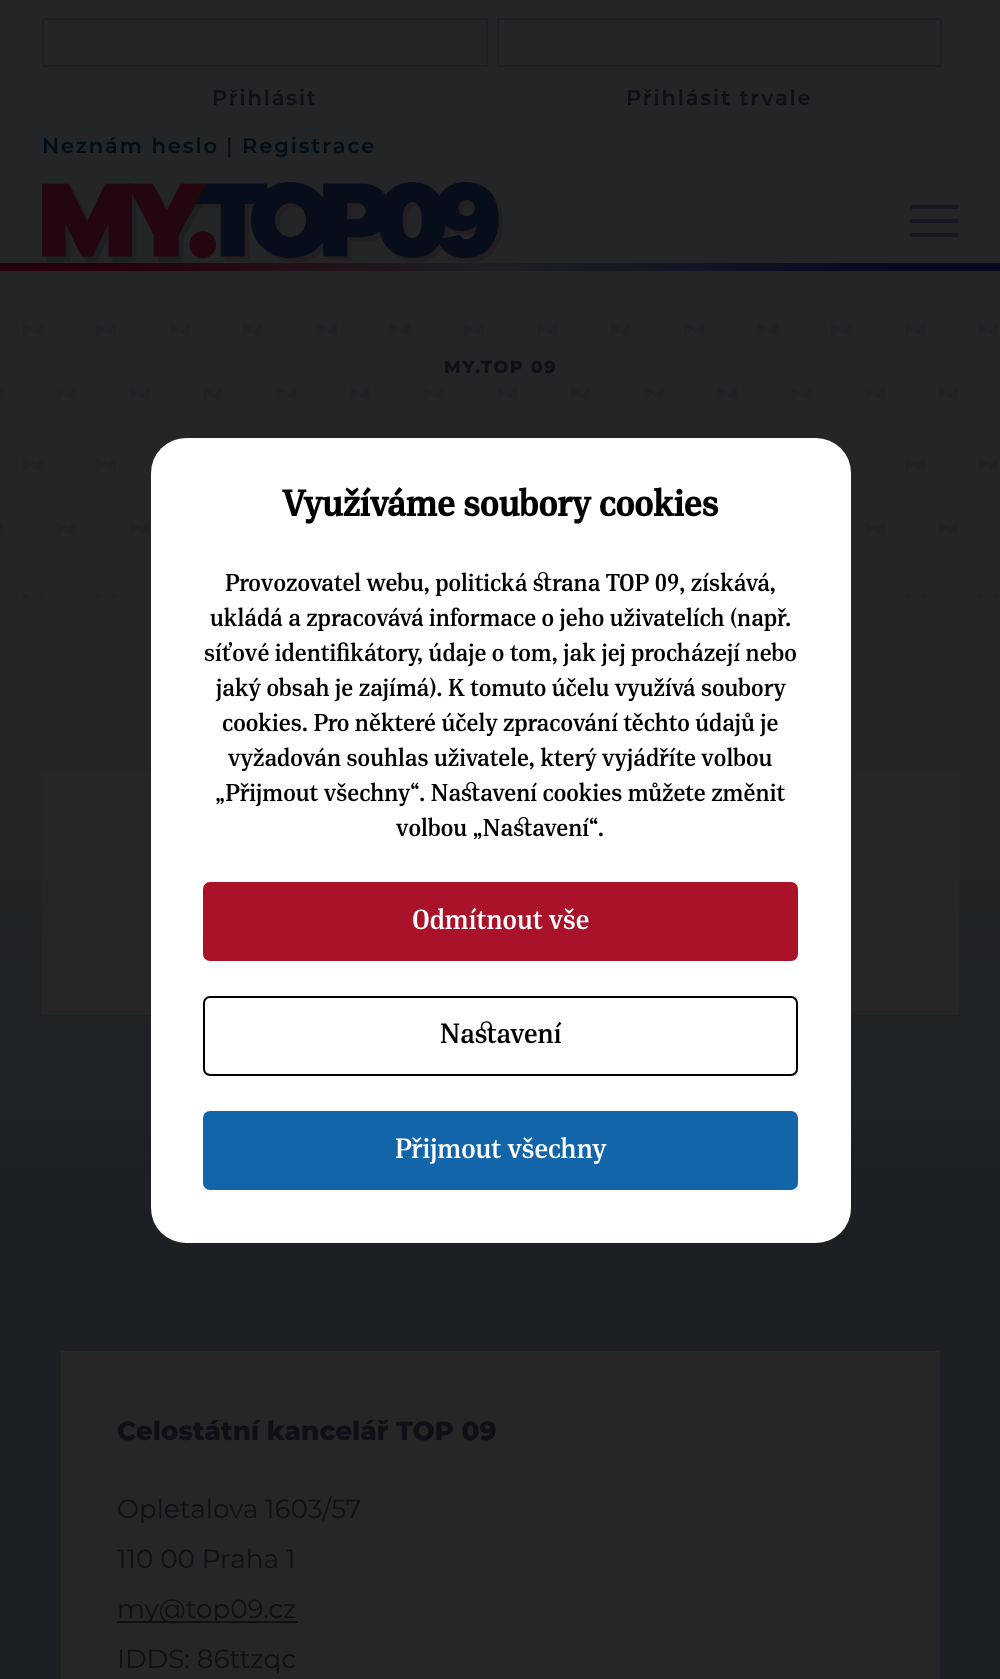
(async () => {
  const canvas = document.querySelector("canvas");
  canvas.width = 1000;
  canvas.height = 1679;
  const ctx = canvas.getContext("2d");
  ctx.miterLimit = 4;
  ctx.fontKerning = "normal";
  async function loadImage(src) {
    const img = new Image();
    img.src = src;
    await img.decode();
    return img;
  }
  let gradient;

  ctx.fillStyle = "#242526";
  ctx.fillRect(0, 0, 1000, 1679);
  ctx.strokeStyle = "#1d1f24";
  ctx.lineWidth = 2;
  ctx.strokeRect(43, 19, 444, 47);
  ctx.strokeRect(498, 19, 443, 47);
  ctx.drawImage(await loadImage("img/1.png"), 42, 182, 461, 81);
  ctx.fillStyle = "#171822";
  ctx.beginPath();
  ctx.roundRect(910, 219, 49, 4, 2);
  ctx.fill();
  ctx.beginPath();
  ctx.roundRect(910, 205, 49, 4, 2);
  ctx.fill();
  ctx.beginPath();
  ctx.roundRect(910, 233, 49, 4, 2);
  ctx.fill();
  gradient = ctx.createLinearGradient(0, 267, 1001, 267);
  gradient.addColorStop(0.1, "#26000c");
  gradient.addColorStop(0.5, "#1d1f24");
  gradient.addColorStop(0.9, "#060920");
  ctx.fillStyle = gradient;
  ctx.fillRect(0, 263, 1000, 8);
  ctx.drawImage(await loadImage("img/2.png"), 0, 323, 998, 418);
  gradient = ctx.createLinearGradient(501, 744, 501, 186);
  gradient.addColorStop(0, "#242526");
  gradient.addColorStop(1, "rgba(36, 37, 38, 0)");
  ctx.fillStyle = gradient;
  ctx.fillRect(0, 597, 998, 143);
  gradient = ctx.createLinearGradient(501, 744, 501, 1183);
  gradient.addColorStop(0, "#242526");
  gradient.addColorStop(1, "#1c2025");
  ctx.fillStyle = gradient;
  ctx.fillRect(0, 881, 1000, 302);
  for (const [x, y, w, h, color] of [
    [42, 771, 917, 244, "#262626"],
    [0, 1183, 1000, 496, "#1c2025"],
    [61, 1351, 879, 328, "#262626"],
    [117, 1621, 181, 2, "#0e0f17"],
  ]) {
    ctx.fillStyle = color;
    ctx.fillRect(x, y, w, h);
  }
  ctx.fillStyle = "#ffffff";
  ctx.beginPath();
  ctx.roundRect(151, 438, 700, 805, 35);
  ctx.fill();
  ctx.fillStyle = "#a91229";
  ctx.beginPath();
  ctx.roundRect(204, 883, 593, 77, 6);
  ctx.fill();
  ctx.strokeStyle = "#a91229";
  ctx.stroke();
  ctx.beginPath();
  ctx.roundRect(204, 997, 593, 78, 6);
  ctx.strokeStyle = "#000000";
  ctx.stroke();
  ctx.fillStyle = "#1265a9";
  ctx.beginPath();
  ctx.roundRect(204, 1112, 593, 77, 6);
  ctx.fill();
  ctx.strokeStyle = "#1265a9";
  ctx.stroke();
  ctx.letterSpacing = "1.9px";
  ctx.font = "600 21px Montserrat";
  ctx.fillStyle = "#0e0f17";
  ctx.fillText("Přihlásit", 212, 105);
  ctx.fillText("Přihlásit trvale", 626, 105);
  ctx.fillStyle = "#000e18";
  ctx.fillText("Neznám heslo", 42, 153);
  ctx.fillStyle = "#0e0f17";
  ctx.fillText("|", 226, 153);
  ctx.fillStyle = "#000e18";
  ctx.fillText("Registrace", 242, 153);
  ctx.letterSpacing = "1.5px";
  ctx.font = "800 17.5px Montserrat";
  ctx.fillStyle = "#0e0f17";
  ctx.fillText("MY.TOP 09", 444, 373);
  ctx.letterSpacing = "0px";
  ctx.font = "800 26.25px Montserrat";
  ctx.fillText("Celostátní kancelář TOP 09", 117, 1440);
  ctx.font = "26.25px Montserrat";
  for (const [text, x, y] of [
    ["Opletalova 1603/57", 117, 1518],
    ["110 00 Praha 1", 117, 1568],
    ["my@top09.cz", 117, 1618],
    ["IDDS: 86ttzqc", 117, 1668],
  ]) {
    ctx.fillText(text, x, y);
  }
  ctx.font = "bold 36.75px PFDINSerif";
  ctx.fillStyle = "#000000";
  ctx.fillText("Využíváme soubory cookies", 282, 516);
  ctx.font = "500 24.5px PFDINSerif";
  for (const [text, x, y] of [
    ["Provozovatel webu, politická strana TOP 09, získává,", 225, 591],
    ["ukládá a zpracovává informace o jeho uživatelích (např.", 210, 626],
    ["síťové identifikátory, údaje o tom, jak jej procházejí nebo", 204, 661],
    ["jaký obsah je zajímá). K tomuto účelu využívá soubory", 216, 696],
    ["cookies. Pro některé účely zpracování těchto údajů je", 222, 731],
    ["vyžadován souhlas uživatele, který vyjádříte volbou", 228, 766],
    ["„Přijmout všechny“. Nastavení cookies můžete změnit", 215, 801],
    ["volbou „Nastavení“.", 396, 836],
  ]) {
    ctx.fillText(text, x, y);
  }
  ctx.font = "500 28px PFDINSerif";
  ctx.fillStyle = "#ffffff";
  ctx.fillText("Odmítnout vše", 412, 929);
  ctx.fillStyle = "#000000";
  ctx.fillText("Nastavení", 440, 1043);
  ctx.fillStyle = "#ffffff";
  ctx.fillText("Přijmout všechny", 395, 1158);
})();
